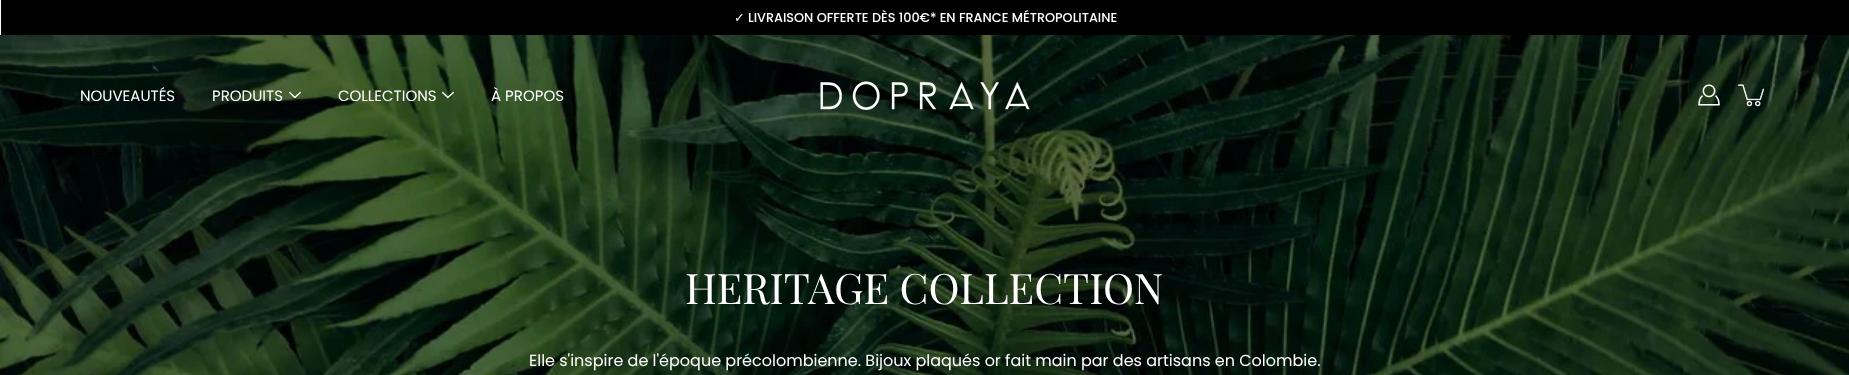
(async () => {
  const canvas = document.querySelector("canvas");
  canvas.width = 1849;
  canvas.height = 375;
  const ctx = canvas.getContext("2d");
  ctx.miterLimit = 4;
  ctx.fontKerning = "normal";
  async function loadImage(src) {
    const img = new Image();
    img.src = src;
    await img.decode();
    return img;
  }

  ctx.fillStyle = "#ffffff";
  ctx.fillRect(0, 0, 1849, 375);
  ctx.fillStyle = "#000000";
  ctx.fillRect(1, 0, 1848, 35);
  ctx.drawImage(await loadImage("img/6.png"), 0, 35, 1849, 340);
  ctx.drawImage(await loadImage("img/1.png"), 289, 91, 12, 8);
  ctx.drawImage(await loadImage("img/2.png"), 442, 91, 12, 8);
  ctx.drawImage(await loadImage("img/3.png"), 1698, 84, 22, 22);
  ctx.drawImage(await loadImage("img/4.png"), 1738, 84, 26, 23);
  ctx.drawImage(await loadImage("img/5.png"), 820, 81, 210, 29);
  ctx.font = "12.8px DejaVu Sans";
  ctx.fillStyle = "#ffffff";
  ctx.fillText("✓", 734, 22);
  ctx.font = "500 12.8px Poppins";
  ctx.fillText("LIVRAISON OFFERTE DÈS 100€* EN FRANCE MÉTROPOLITAINE", 748, 22);
  ctx.font = "15px Poppins";
  for (const [text, x, y] of [
    ["NOUVEAUTÉS", 80, 101],
    ["PRODUITS", 212, 101],
    ["COLLECTIONS", 338, 101],
    ["À PROPOS", 491, 101],
  ]) {
    ctx.fillText(text, x, y);
  }
  ctx.font = "42px Playfair Display";
  ctx.fillText("HERITAGE COLLECTION", 685, 304);
  ctx.font = "16px Poppins";
  ctx.fillText("Elle s'inspire de l'époque précolombienne. Bijoux plaqués or fait main par des artisans en Colombie.", 529, 366);
})();
